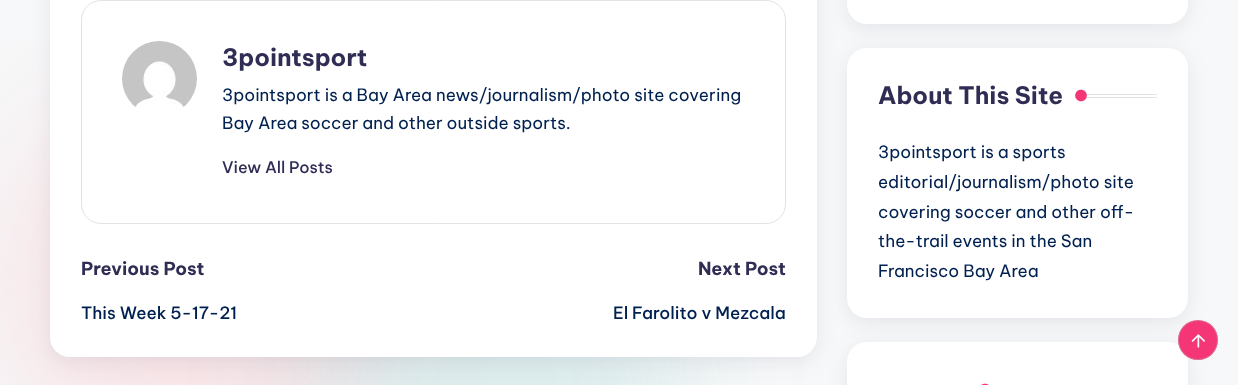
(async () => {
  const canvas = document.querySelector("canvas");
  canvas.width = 1238;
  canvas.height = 385;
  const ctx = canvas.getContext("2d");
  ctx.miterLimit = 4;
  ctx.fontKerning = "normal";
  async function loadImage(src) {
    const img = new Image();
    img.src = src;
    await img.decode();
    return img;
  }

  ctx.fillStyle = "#f7f8f9";
  ctx.fillRect(0, 0, 1238, 385);
  ctx.save();
  ctx.beginPath();
  ctx.rect(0, 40, 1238, 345);
  ctx.clip();
  ctx.fillStyle = "#f7e3e6";
  ctx.filter = "blur(64px)";
  ctx.beginPath();
  ctx.roundRect(0, 90, 384, 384, 192);
  ctx.fill();
  ctx.filter = "none";
  ctx.restore();
  ctx.fillStyle = "rgba(4, 134, 139, 0.1)";
  ctx.filter = "blur(64px)";
  ctx.beginPath();
  ctx.roundRect(304, 200, 384, 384, 192);
  ctx.fill();
  ctx.filter = "none";
  ctx.fillStyle = "rgba(69, 67, 96, 0.1)";
  ctx.filter = "blur(10px)";
  ctx.beginPath();
  ctx.roundRect(50, -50, 767, 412, 20);
  ctx.fill();
  ctx.filter = "none";
  ctx.fillStyle = "#ffffff";
  ctx.beginPath();
  ctx.roundRect(50, -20, 767, 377, 20);
  ctx.fill();
  ctx.beginPath();
  ctx.roundRect(81.5, 0.5, 704, 223, 19.5);
  ctx.strokeStyle = "#e3e3e3";
  ctx.stroke();
  ctx.drawImage(await loadImage("img/1.png"), 122, 41, 75, 66);
  ctx.fillStyle = "rgba(69, 67, 96, 0.1)";
  ctx.filter = "blur(10px)";
  ctx.beginPath();
  ctx.roundRect(847, -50, 341, 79, 20);
  ctx.fill();
  ctx.filter = "none";
  ctx.fillStyle = "#ffffff";
  ctx.beginPath();
  ctx.roundRect(847, -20, 341, 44, 20);
  ctx.fill();
  ctx.fillStyle = "rgba(69, 67, 96, 0.1)";
  ctx.filter = "blur(10px)";
  ctx.beginPath();
  ctx.roundRect(847, 53, 341, 270, 20);
  ctx.fill();
  ctx.filter = "none";
  ctx.fillStyle = "#ffffff";
  ctx.beginPath();
  ctx.roundRect(847, 48, 341, 270, 20);
  ctx.fill();
  ctx.fillStyle = "#e3e3e3";
  ctx.fillRect(1075, 94, 82, 1);
  ctx.fillRect(1075, 97, 82, 1);
  ctx.drawImage(await loadImage("img/2.png"), 1075, 89, 12, 13);
  ctx.fillStyle = "rgba(69, 67, 96, 0.1)";
  ctx.filter = "blur(10px)";
  ctx.beginPath();
  ctx.roundRect(847, 347, 341, 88, 20);
  ctx.fill();
  ctx.filter = "none";
  ctx.fillStyle = "#ffffff";
  ctx.beginPath();
  ctx.roundRect(847, 342, 341, 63, 20);
  ctx.fill();
  ctx.drawImage(await loadImage("img/3.png"), 981, 383, 8, 2);
  ctx.fillStyle = "#f43676";
  ctx.beginPath();
  ctx.arc(1198, 340, 20, 0, Math.PI * 2);
  ctx.fill();
  ctx.beginPath();
  ctx.arc(1198, 340, 19.5, 0, Math.PI * 2);
  ctx.strokeStyle = "rgba(185, 185, 185, 0.4)";
  ctx.stroke();
  ctx.drawImage(await loadImage("img/4.png"), 1191, 334, 14, 14);
  ctx.font = "bold 24px Be Vietnam Pro";
  ctx.fillStyle = "#302d55";
  ctx.fillText("3pointsport", 222, 66);
  ctx.font = "17px Be Vietnam Pro";
  ctx.fillStyle = "#002050";
  ctx.fillText("3pointsport is a Bay Area news/journalism/photo site covering", 222, 101);
  ctx.fillText("Bay Area soccer and other outside sports.", 222, 129);
  ctx.font = "500 16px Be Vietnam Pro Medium";
  ctx.fillStyle = "#302d55";
  ctx.fillText("View All Posts", 222, 173);
  ctx.font = "bold 18px Be Vietnam Pro";
  ctx.fillText("Previous Post", 81, 275);
  ctx.font = "500 17px Be Vietnam Pro Medium";
  ctx.fillStyle = "#002050";
  ctx.fillText("This Week 5-17-21", 81, 319);
  ctx.font = "bold 18px Be Vietnam Pro";
  ctx.fillStyle = "#302d55";
  ctx.fillText("Next Post", 698, 275);
  ctx.font = "500 17px Be Vietnam Pro Medium";
  ctx.fillStyle = "#002050";
  ctx.fillText("El Farolito v Mezcala", 613, 319);
  ctx.font = "bold 24px Be Vietnam Pro";
  ctx.fillStyle = "#302d55";
  ctx.fillText("About This Site", 878, 104);
  ctx.font = "17px Be Vietnam Pro";
  ctx.fillStyle = "#002050";
  for (const [text, x, y] of [
    ["3pointsport is a sports", 878, 158],
    ["editorial/journalism/photo site", 878, 188],
    ["covering soccer and other off-", 878, 218],
    ["the-trail events in the San", 878, 247],
    ["Francisco Bay Area", 878, 277],
  ]) {
    ctx.fillText(text, x, y);
  }
})();
